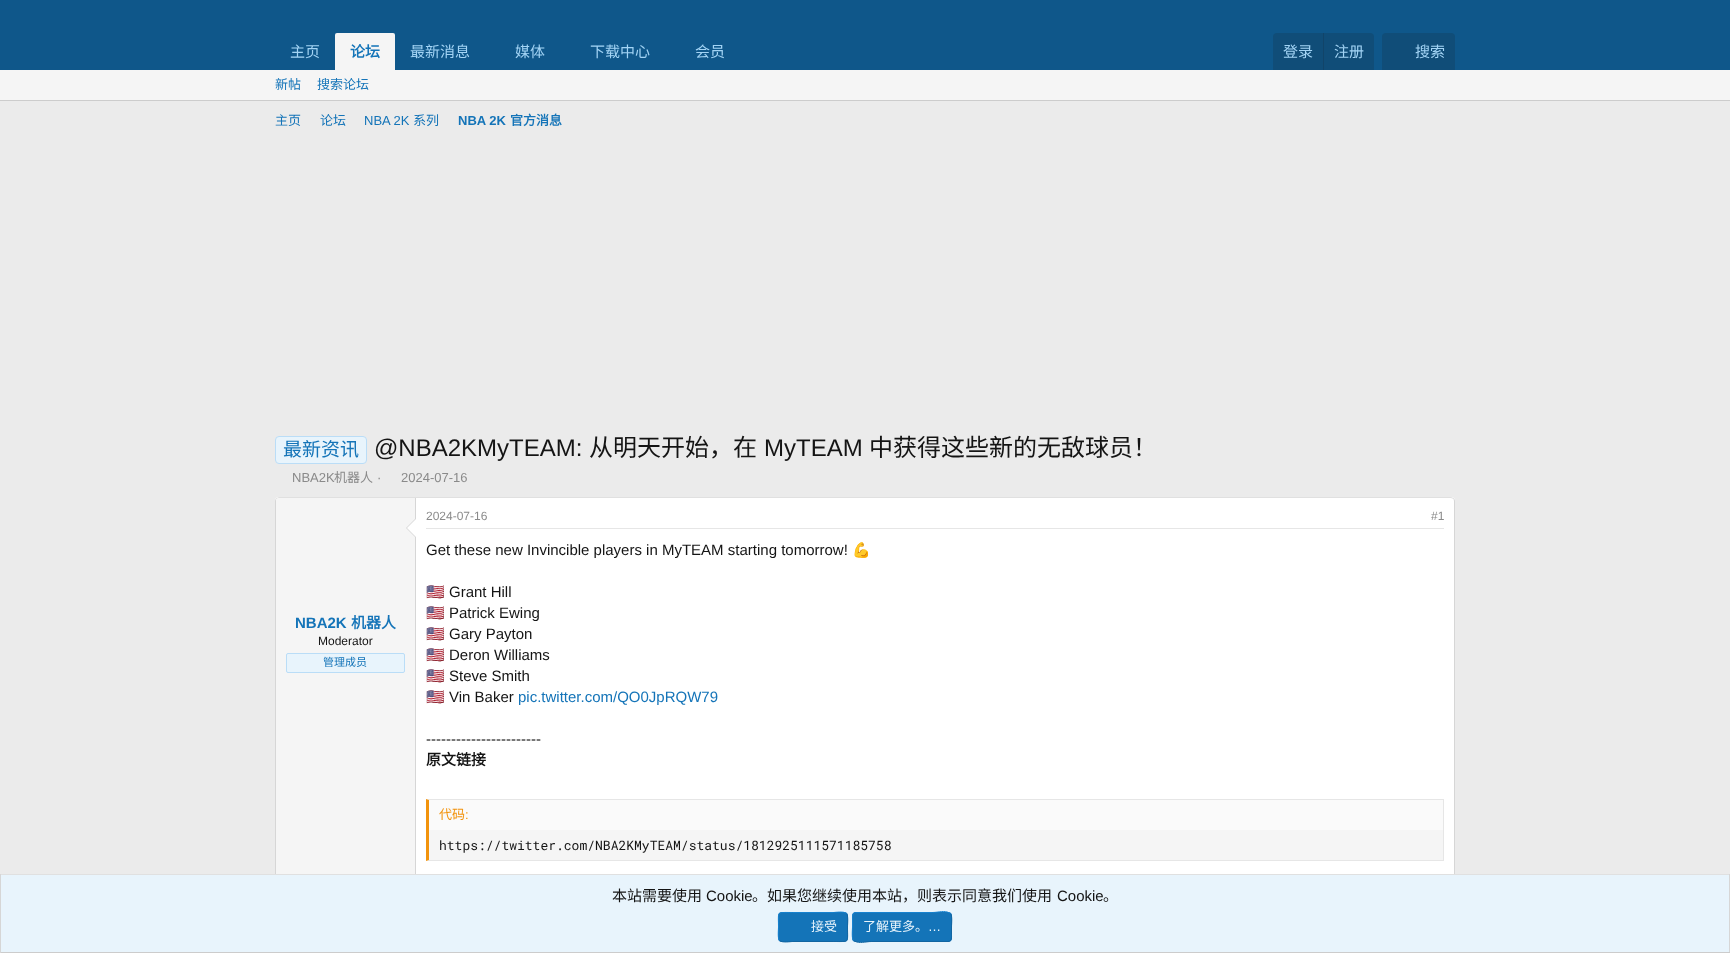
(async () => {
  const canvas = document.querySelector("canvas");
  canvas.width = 1730;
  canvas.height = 953;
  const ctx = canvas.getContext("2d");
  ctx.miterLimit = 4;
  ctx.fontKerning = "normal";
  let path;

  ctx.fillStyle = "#ebebeb";
  ctx.fillRect(0, 0, 1730, 953);
  ctx.fillStyle = "#0f578a";
  ctx.fillRect(0, 0, 1730, 70);
  ctx.fillStyle = "#f5f5f5";
  ctx.beginPath();
  ctx.roundRect(335, 33, 60, 37, [2, 2, 0, 0]);
  ctx.fill();
  ctx.fillStyle = "#104d78";
  ctx.beginPath();
  ctx.roundRect(1273, 33, 101, 37, [4, 4, 0, 0]);
  ctx.fill();
  ctx.fillStyle = "#114469";
  ctx.fillRect(1323, 33, 1, 37);
  ctx.fillStyle = "#104d78";
  ctx.beginPath();
  ctx.roundRect(1382, 33, 73, 37, [4, 4, 0, 0]);
  ctx.fill();
  ctx.fillStyle = "#f5f5f5";
  ctx.fillRect(0, 70, 1730, 30);
  ctx.fillStyle = "#cccccc";
  ctx.fillRect(0, 100, 1730, 1);
  ctx.fillStyle = "#e8f4fc";
  ctx.beginPath();
  ctx.roundRect(275.5, 436.5, 91, 27, 3.5);
  ctx.fill();
  ctx.strokeStyle = "#baddf7";
  ctx.stroke();
  ctx.fillStyle = "#ffffff";
  ctx.beginPath();
  ctx.roundRect(275, 497, 1180, 383, 4);
  ctx.fill();
  path = new Path2D("M276.5 498.5L279 497.5H1451L1453.5 498.5");
  ctx.strokeStyle = "#e0e0e0";
  ctx.stroke(path);
  path = new Path2D("M1453.5 498.5C1454 499 1454.5 500 1454.5 501V876C1454.5 877 1454 878 1453.5 878.5");
  ctx.strokeStyle = "#d6d6d6";
  ctx.stroke(path);
  path = new Path2D("M276.5 878.5C276 878 275.5 877 275.5 876V501C275.5 500 276 499 276.5 498.5");
  ctx.stroke(path);
  ctx.fillStyle = "#f5f5f5";
  ctx.beginPath();
  ctx.roundRect(276, 498, 140, 381, [3, 0, 0, 3]);
  ctx.fill();
  ctx.fillStyle = "#d6d6d6";
  ctx.fillRect(415, 498, 1, 381);
  path = new Path2D("M416 518V538L406 528Z");
  ctx.fill(path);
  ctx.fillStyle = "#ffffff";
  path = new Path2D("M416 519V537L407 528Z");
  ctx.fill(path);
  ctx.fillStyle = "#e8f4fc";
  ctx.beginPath();
  ctx.roundRect(286.5, 653.5, 118, 19, 1.5);
  ctx.fill();
  ctx.strokeStyle = "#baddf7";
  ctx.stroke();
  ctx.fillStyle = "#e6e6e6";
  ctx.fillRect(426, 528, 1018, 1);
  ctx.fillStyle = "#f5f5f5";
  ctx.fillRect(429, 830, 1014, 30);
  ctx.fillStyle = "#e6e6e6";
  path = new Path2D("M426 799H1444L1443 800H429Z");
  ctx.fill(path);
  ctx.fillRect(1443, 799, 1, 62);
  path = new Path2D("M1444 861H426L429 860H1443Z");
  ctx.fill(path);
  ctx.fillStyle = "#f2930d";
  path = new Path2D("M426 861V799L429 800V860Z");
  ctx.fill(path);
  for (const [x, y, w, h, color] of [
    [429, 800, 1014, 30, "#fafafa"],
    [1, 875, 1728, 77, "#e8f4fc"],
    [0, 874, 1730, 1, "#e0e0e0"],
    [1729, 874, 1, 79, "#d6d6d6"],
    [0, 952, 1730, 1, "#cccccc"],
    [0, 874, 1, 79, "#d6d6d6"],
  ]) {
    ctx.fillStyle = color;
    ctx.fillRect(x, y, w, h);
  }
  ctx.fillStyle = "#1474b8";
  ctx.beginPath();
  ctx.roundRect(778, 912, 70, 30, 4);
  ctx.fill();
  path = new Path2D("M846.5 913.5C848.5 915.5 847.5 924 847.5 927C847.5 943 850 941.5 833.5 941.5H792.5C791 941.5 782 943 779.5 940.5");
  ctx.strokeStyle = "#1265a1";
  ctx.stroke(path);
  path = new Path2D("M779.5 940.5C777.5 938.5 778.5 930 778.5 927C778.5 911 776 912.5 792.5 912.5H833.5C835 912.5 844 911 846.5 913.5");
  ctx.strokeStyle = "#1782cf";
  ctx.stroke(path);
  ctx.beginPath();
  ctx.roundRect(852, 912, 100, 30, 4);
  ctx.fill();
  path = new Path2D("M950.5 913.5C952.5 915.5 951.5 924 951.5 927V934.5C951.5 937 952 941.5 948 941.5H871.5C865.5 941.5 859.5 944 854.5 941L853.5 940.5");
  ctx.strokeStyle = "#1265a1";
  ctx.stroke(path);
  path = new Path2D("M853.5 940.5C851.5 938.5 852.5 930 852.5 927V919.5C852.5 917 852 912.5 856 912.5H932.5C938.5 912.5 944.5 910 949.5 913L950.5 913.5");
  ctx.strokeStyle = "#1782cf";
  ctx.stroke(path);
  ctx.font = "15px Noto Sans CJK SC";
  ctx.fillStyle = "#a3d4f5";
  ctx.fillText("主页", 290, 57);
  ctx.font = "bold 15px Noto Sans CJK SC";
  ctx.fillStyle = "#1474b8";
  ctx.fillText("论坛", 350, 57);
  ctx.font = "15px Noto Sans CJK SC";
  ctx.fillStyle = "#a3d4f5";
  for (const [text, x, y] of [
    ["最新消息", 410, 57],
    ["媒体", 515, 57],
    ["下载中心", 590, 57],
    ["会员", 695, 57],
    ["登录", 1283, 57],
    ["注册", 1334, 57],
    ["搜索", 1415, 57],
  ]) {
    ctx.fillText(text, x, y);
  }
  ctx.font = "13px Noto Sans CJK SC";
  ctx.fillStyle = "#1474b8";
  for (const [text, x, y] of [
    ["新帖", 275, 89],
    ["搜索论坛", 317, 89],
    ["主页", 275, 125],
    ["论坛", 320, 125],
  ]) {
    ctx.fillText(text, x, y);
  }
  ctx.font = "13px Liberation Sans";
  ctx.fillText("NBA 2K", 364, 125);
  ctx.font = "13px Noto Sans CJK SC";
  ctx.fillText("系列", 413, 125);
  ctx.font = "bold 13px Liberation Sans";
  ctx.fillText("NBA 2K", 458, 125);
  ctx.font = "bold 13px Noto Sans CJK SC";
  ctx.fillText("官方消息", 510, 125);
  ctx.font = "19px Noto Sans CJK SC";
  ctx.fillText("最新资讯", 283, 456);
  ctx.font = "24px Liberation Sans";
  ctx.fillStyle = "#141414";
  ctx.fillText("@NBA2KMyTEAM:", 374, 456);
  ctx.font = "24px Noto Sans CJK SC";
  ctx.fillText("从明天开始，在", 589, 456);
  ctx.font = "24px Liberation Sans";
  ctx.fillText("MyTEAM", 764, 456);
  ctx.font = "24px Noto Sans CJK SC";
  ctx.fillText("中获得这些新的无敌球员！", 869, 456);
  ctx.font = "13px Liberation Sans";
  ctx.fillStyle = "#8a8a8a";
  ctx.fillText("NBA2K", 292, 482);
  ctx.font = "13px Noto Sans CJK SC";
  ctx.fillText("机器人", 334, 482);
  ctx.font = "13px Liberation Sans";
  ctx.fillText("·", 377, 482);
  ctx.fillText("2024-07-16", 401, 482);
  ctx.font = "bold 15px Liberation Sans";
  ctx.fillStyle = "#1474b8";
  ctx.fillText("NBA2K", 295, 628);
  ctx.font = "bold 15px Noto Sans CJK SC";
  ctx.fillText("机器人", 351, 628);
  ctx.font = "12px Liberation Sans";
  ctx.fillStyle = "#141414";
  ctx.fillText("Moderator", 318, 645);
  ctx.font = "11px Noto Sans CJK SC";
  ctx.fillStyle = "#1474b8";
  ctx.fillText("管理成员", 323, 666);
  ctx.font = "12px Liberation Sans";
  ctx.fillStyle = "#8a8a8a";
  ctx.fillText("2024-07-16", 426, 520);
  ctx.fillText("#1", 1431, 520);
  ctx.font = "15px Liberation Sans";
  ctx.fillStyle = "#141414";
  ctx.fillText("Get these new Invincible players in MyTEAM starting tomorrow!", 426, 555);
  ctx.font = "15px Noto Color Emoji";
  ctx.fillText("💪", 852, 555);
  ctx.fillText("🇺🇸", 426, 597);
  ctx.font = "15px Liberation Sans";
  ctx.fillText("Grant Hill", 449, 597);
  ctx.font = "15px Noto Color Emoji";
  ctx.fillText("🇺🇸", 426, 618);
  ctx.font = "15px Liberation Sans";
  ctx.fillText("Patrick Ewing", 449, 618);
  ctx.font = "15px Noto Color Emoji";
  ctx.fillText("🇺🇸", 426, 639);
  ctx.font = "15px Liberation Sans";
  ctx.fillText("Gary Payton", 449, 639);
  ctx.font = "15px Noto Color Emoji";
  ctx.fillText("🇺🇸", 426, 660);
  ctx.font = "15px Liberation Sans";
  ctx.fillText("Deron Williams", 449, 660);
  ctx.font = "15px Noto Color Emoji";
  ctx.fillText("🇺🇸", 426, 681);
  ctx.font = "15px Liberation Sans";
  ctx.fillText("Steve Smith", 449, 681);
  ctx.font = "15px Noto Color Emoji";
  ctx.fillText("🇺🇸", 426, 702);
  ctx.font = "15px Liberation Sans";
  ctx.fillText("Vin Baker", 449, 702);
  ctx.fillStyle = "#1474b8";
  ctx.fillText("pic.twitter.com/QO0JpRQW79", 518, 702);
  ctx.fillStyle = "#141414";
  ctx.fillText("-----------------------", 426, 744);
  ctx.font = "bold 15px Noto Sans CJK SC";
  ctx.fillText("原文链接", 426, 765);
  ctx.font = "13px Noto Sans CJK SC";
  ctx.fillStyle = "#f2930d";
  ctx.fillText("代码", 439, 819);
  ctx.font = "13px Liberation Sans";
  ctx.fillText(":", 465, 819);
  ctx.font = "13px Roboto Mono";
  ctx.fillStyle = "#141414";
  ctx.fillText("https://twitter.com/NBA2KMyTEAM/status/1812925111571185758", 439, 850);
  ctx.font = "15px Noto Sans CJK SC";
  ctx.fillText("本站需要使用", 612, 901);
  ctx.font = "15px Liberation Sans";
  ctx.fillText("Cookie", 706, 901);
  ctx.font = "15px Noto Sans CJK SC";
  ctx.fillText("。如果您继续使用本站，则表示同意我们使用", 752, 901);
  ctx.font = "15px Liberation Sans";
  ctx.fillText("Cookie", 1057, 901);
  ctx.font = "15px Noto Sans CJK SC";
  ctx.fillText("。", 1103, 901);
  ctx.font = "13px Noto Sans CJK SC";
  ctx.fillStyle = "#e8f4fc";
  ctx.fillText("接受", 811, 931);
  ctx.fillText("了解更多。", 863, 931);
  ctx.font = "13px Liberation Sans";
  ctx.fillText("…", 928, 931);
})();
